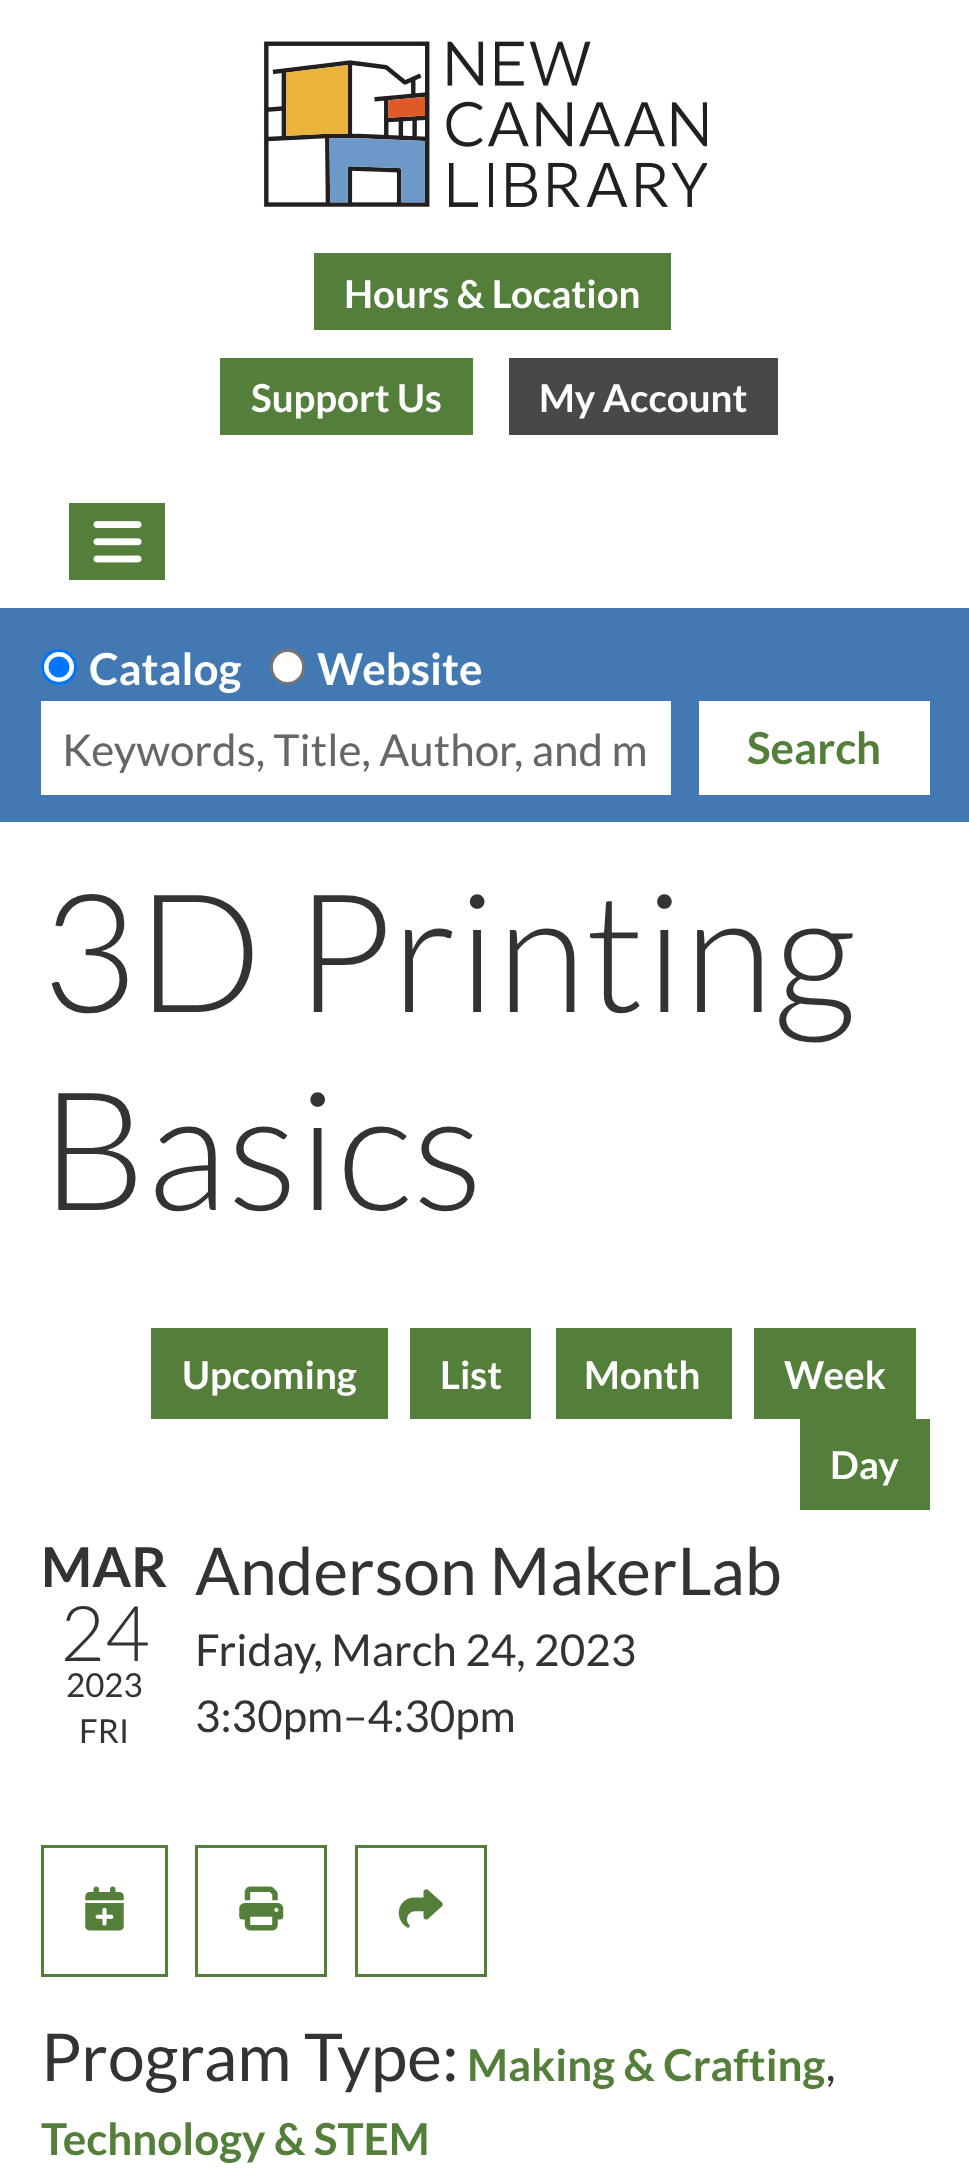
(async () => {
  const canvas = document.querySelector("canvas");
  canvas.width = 969;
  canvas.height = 2178;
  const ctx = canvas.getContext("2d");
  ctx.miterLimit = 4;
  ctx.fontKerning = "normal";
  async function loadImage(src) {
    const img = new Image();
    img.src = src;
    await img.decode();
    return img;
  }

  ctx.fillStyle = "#ffffff";
  ctx.fillRect(0, 0, 969, 2178);
  ctx.drawImage(await loadImage("img/1.png"), 264, 41, 443, 166);
  for (const [x, y, w, h, color] of [
    [314, 253, 357, 77, "#537f3a"],
    [220, 358, 253, 77, "#537f3a"],
    [509, 358, 269, 77, "#494848"],
    [69, 503, 96, 77, "#537f3a"],
  ]) {
    ctx.fillStyle = color;
    ctx.fillRect(x, y, w, h);
  }
  ctx.drawImage(await loadImage("img/2.png"), 93, 521, 49, 42);
  ctx.fillStyle = "#4379b2";
  ctx.fillRect(0, 608, 969, 214);
  ctx.fillStyle = "#ffffff";
  ctx.beginPath();
  ctx.arc(59, 667, 16.5, 0, Math.PI * 2);
  ctx.fill();
  ctx.strokeStyle = "#0075ff";
  ctx.lineWidth = 3;
  ctx.stroke();
  ctx.fillStyle = "#0075ff";
  ctx.beginPath();
  ctx.arc(59, 667, 10.5, 0, Math.PI * 2);
  ctx.fill();
  ctx.fillStyle = "#ffffff";
  ctx.beginPath();
  ctx.roundRect(271.5, 650.5, 32, 33, 16);
  ctx.fill();
  ctx.strokeStyle = "#767676";
  ctx.stroke();
  for (const [x, y, w, h, color] of [
    [41, 701, 630, 94, "#ffffff"],
    [699, 701, 231, 94, "#ffffff"],
    [151, 1328, 237, 91, "#537f3a"],
    [410, 1328, 121, 91, "#537f3a"],
    [556, 1328, 176, 91, "#537f3a"],
    [754, 1328, 162, 91, "#537f3a"],
    [800, 1419, 130, 91, "#537f3a"],
  ]) {
    ctx.fillStyle = color;
    ctx.fillRect(x, y, w, h);
  }
  ctx.strokeStyle = "#537f3a";
  ctx.strokeRect(42.5, 1846.5, 124, 129);
  ctx.drawImage(await loadImage("img/3.png"), 85, 1886, 39, 45);
  ctx.strokeRect(196.5, 1846.5, 129, 129);
  ctx.drawImage(await loadImage("img/4.png"), 239, 1886, 45, 45);
  ctx.strokeRect(356.5, 1846.5, 129, 129);
  ctx.drawImage(await loadImage("img/5.png"), 398, 1889, 45, 39);
  ctx.font = "bold 38.5px Lato";
  ctx.fillStyle = "#ffffff";
  for (const [text, x, y] of [
    ["Hours & Location", 344, 308],
    ["Support Us", 251, 412],
    ["My Account", 539, 412],
  ]) {
    ctx.fillText(text, x, y);
  }
  ctx.font = "bold 44px Lato";
  ctx.fillText("Catalog", 89, 685);
  ctx.fillText("Website", 317, 685);
  ctx.save();
  ctx.beginPath();
  ctx.rect(63, 721, 589, 52);
  ctx.clip();
  ctx.font = "44px Lato";
  ctx.fillStyle = "#666666";
  ctx.fillText("Keywords, Title, Author, and m", 62, 766);
  ctx.restore();
  ctx.fillStyle = "#537f3a";
  ctx.fillText("Search", 747, 764);
  ctx.font = "300 165px Lato";
  ctx.fillStyle = "#333333";
  ctx.fillText("3D Printing", 41, 1012);
  ctx.fillText("Basics", 41, 1210);
  ctx.font = "bold 38.5px Lato";
  ctx.fillStyle = "#ffffff";
  for (const [text, x, y] of [
    ["Upcoming", 182, 1389],
    ["List", 440, 1389],
    ["Month", 584, 1389],
    ["Week", 784, 1389],
    ["Day", 830, 1479],
  ]) {
    ctx.fillText(text, x, y);
  }
  ctx.font = "bold 55px Lato";
  ctx.fillStyle = "#333333";
  ctx.fillText("MAR", 41, 1587);
  ctx.font = "300 77px Lato";
  ctx.fillText("24", 60, 1661);
  ctx.font = "33px Lato";
  ctx.fillText("2023", 66, 1697);
  ctx.fillText("FRI", 79, 1743);
  ctx.font = "66px Lato";
  ctx.fillText("Anderson MakerLab", 195, 1595);
  ctx.font = "44px Lato";
  ctx.fillText("Friday, March 24, 2023", 195, 1666);
  ctx.fillText("3:30pm–4:30pm", 195, 1732);
  ctx.font = "66px Lato";
  ctx.fillText("Program Type:", 41, 2081);
  ctx.font = "bold 44px Lato";
  ctx.fillStyle = "#537f3a";
  ctx.fillText("Making & Crafting", 467, 2081);
  ctx.font = "44px Lato";
  ctx.fillStyle = "#333333";
  ctx.fillText(",", 826, 2081);
  ctx.font = "bold 44px Lato";
  ctx.fillStyle = "#537f3a";
  ctx.fillText("Technology & STEM", 41, 2155);
})();
